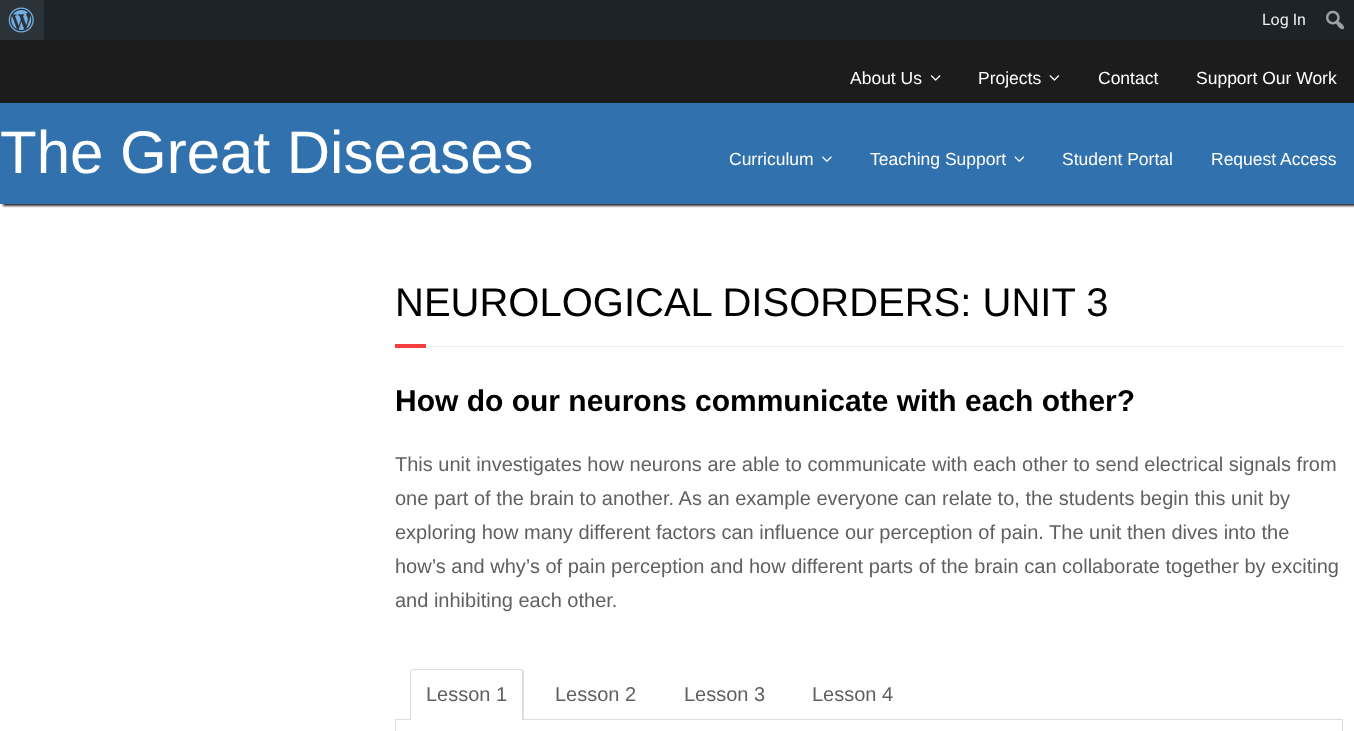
(async () => {
  const canvas = document.querySelector("canvas");
  canvas.width = 1354;
  canvas.height = 731;
  const ctx = canvas.getContext("2d");
  ctx.miterLimit = 4;
  ctx.fontKerning = "normal";
  async function loadImage(src) {
    const img = new Image();
    img.src = src;
    await img.decode();
    return img;
  }
  let path;

  ctx.fillStyle = "#ffffff";
  ctx.fillRect(0, 0, 1354, 731);
  ctx.fillStyle = "#1d2327";
  ctx.fillRect(44, 0, 1310, 40);
  ctx.fillStyle = "#2c3338";
  ctx.fillRect(0, 0, 44, 40);
  ctx.drawImage(await loadImage("img/1.png"), 8, 7, 26, 26);
  ctx.drawImage(await loadImage("img/2.png"), 1326, 10, 18, 20);
  ctx.fillStyle = "#303030";
  ctx.filter = "blur(1px)";
  ctx.beginPath();
  ctx.rect(3, 98, 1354, 108);
  ctx.fill();
  ctx.filter = "none";
  ctx.fillStyle = "#1c1c1c";
  ctx.fillRect(0, 40, 1354, 63);
  ctx.drawImage(await loadImage("img/3.png"), 930, 75, 11, 6);
  ctx.drawImage(await loadImage("img/4.png"), 1049, 75, 11, 6);
  ctx.fillStyle = "#3172ae";
  ctx.fillRect(0, 103, 1354, 101);
  ctx.drawImage(await loadImage("img/5.png"), 822, 156, 10, 6);
  ctx.drawImage(await loadImage("img/6.png"), 1014, 156, 11, 6);
  ctx.fillStyle = "#f33f3f";
  ctx.fillRect(395, 344, 31, 4);
  ctx.fillStyle = "#eeeeee";
  ctx.fillRect(426, 346, 917, 1);
  ctx.strokeStyle = "#dddddd";
  ctx.strokeRect(395.5, 719.5, 947, 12);
  ctx.fillStyle = "#ffffff";
  ctx.beginPath();
  ctx.roundRect(410, 669, 114, 51, [4, 4, 0, 0]);
  ctx.fill();
  ctx.fillStyle = "#dddddd";
  path = new Path2D("M414 669H520C522 669 524 670 524 672V720H410V672C410 670 412 669 414 669ZM414 670H520C521 670 522 671 522 672V720H411V672C411 671 412 670 414 670Z");
  ctx.fill(path, "evenodd");
  ctx.font = "16px Roboto";
  ctx.fillStyle = "#f0f0f1";
  ctx.fillText("Log In", 1262, 25);
  ctx.font = "17.5px Liberation Sans";
  ctx.fillStyle = "#ffffff";
  for (const [text, x, y] of [
    ["About Us", 850, 84],
    ["Projects", 978, 84],
    ["Contact", 1098, 84],
    ["Support Our Work", 1196, 84],
  ]) {
    ctx.fillText(text, x, y);
  }
  ctx.font = "60px Liberation Sans";
  ctx.fillText("The Great Diseases", 0, 173);
  ctx.font = "17.5px Liberation Sans";
  for (const [text, x, y] of [
    ["Curriculum", 729, 165],
    ["Teaching Support", 870, 165],
    ["Student Portal", 1062, 165],
    ["Request Access", 1211, 165],
  ]) {
    ctx.fillText(text, x, y);
  }
  ctx.font = "40px Liberation Sans";
  ctx.fillStyle = "#000000";
  ctx.fillText("NEUROLOGICAL DISORDERS: UNIT 3", 395, 316);
  ctx.font = "bold 30px Liberation Sans";
  ctx.fillText("How do our neurons communicate with each other?", 395, 411);
  ctx.font = "20px Liberation Sans";
  ctx.fillStyle = "#606060";
  for (const [text, x, y] of [
    ["This unit investigates how neurons are able to communicate with each other to send electrical signals from", 395, 471],
    ["one part of the brain to another. As an example everyone can relate to, the students begin this unit by", 395, 505],
    ["exploring how many different factors can influence our perception of pain. The unit then dives into the", 395, 539],
    ["how’s and why’s of pain perception and how different parts of the brain can collaborate together by exciting", 395, 573],
    ["and inhibiting each other.", 395, 607],
    ["Lesson 1", 426, 701],
    ["Lesson 2", 555, 701],
    ["Lesson 3", 684, 701],
    ["Lesson 4", 812, 701],
  ]) {
    ctx.fillText(text, x, y);
  }
})();
